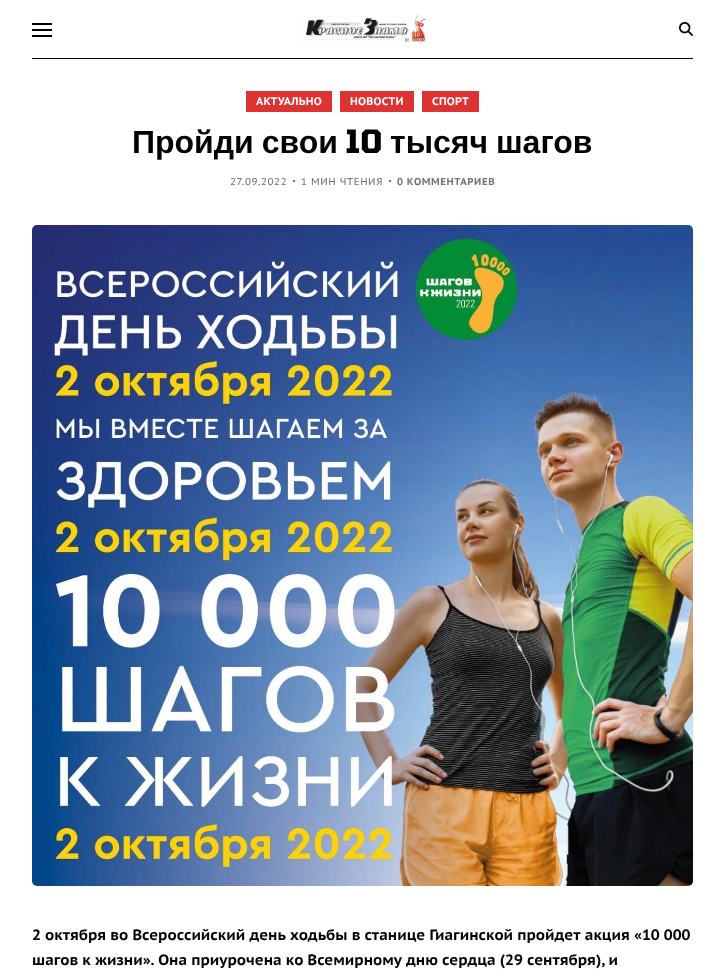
(async () => {
  const canvas = document.querySelector("canvas");
  canvas.width = 725;
  canvas.height = 976;
  const ctx = canvas.getContext("2d");
  ctx.miterLimit = 4;
  ctx.fontKerning = "normal";
  async function loadImage(src) {
    const img = new Image();
    img.src = src;
    await img.decode();
    return img;
  }

  ctx.fillStyle = "#ffffff";
  ctx.fillRect(0, 0, 725, 976);
  for (const [x, y, w, h, color] of [
    [32, 58, 661, 1, "#000000"],
    [32, 23, 20, 2, "#000000"],
    [32, 29, 20, 2, "#000000"],
    [32, 35, 20, 2, "#000000"],
  ]) {
    ctx.fillStyle = color;
    ctx.fillRect(x, y, w, h);
  }
  ctx.drawImage(await loadImage("img/1.png"), 303, 15, 123, 28);
  ctx.drawImage(await loadImage("img/2.png"), 679, 22, 14, 14);
  for (const [x, y, w, h, color] of [
    [246, 91, 86, 21, "#dd3333"],
    [340, 91, 74, 21, "#dd3333"],
    [422, 91, 57, 21, "#dd3333"],
    [293, 180, 2, 2, "#6c757d"],
    [389, 180, 2, 2, "#6c757d"],
  ]) {
    ctx.fillStyle = color;
    ctx.fillRect(x, y, w, h);
  }
  ctx.drawImage(await loadImage("img/3.png"), 32, 225, 661, 661);
  ctx.letterSpacing = "0.25px";
  ctx.font = "bold 11px PT Sans Caption";
  ctx.fillStyle = "#ffffff";
  for (const [text, x, y] of [
    ["АКТУАЛЬНО", 256, 105],
    ["НОВОСТИ", 350, 105],
    ["СПОРТ", 432, 105],
  ]) {
    ctx.fillText(text, x, y);
  }
  ctx.letterSpacing = "0px";
  ctx.wordSpacing = "-1px";
  ctx.font = "bold 32px Liberation Sans";
  ctx.fillStyle = "#020202";
  ctx.fillText("Пройди свои", 132, 153);
  ctx.wordSpacing = "0px";
  ctx.font = "bold 32px Tomorrow";
  ctx.fillText("10", 345, 153);
  ctx.wordSpacing = "-1px";
  ctx.font = "bold 32px Liberation Sans";
  ctx.fillText("тысяч шагов", 390, 153);
  ctx.letterSpacing = "0.6px";
  ctx.wordSpacing = "0px";
  ctx.font = "10px PT Sans Caption";
  ctx.fillStyle = "#6c757d";
  ctx.fillText("27.09.2022", 230, 185);
  ctx.fillText("1 МИН ЧТЕНИЯ", 301, 185);
  ctx.font = "bold 10px PT Sans Caption";
  ctx.fillText("0 КОММЕНТАРИЕВ", 397, 185);
  ctx.letterSpacing = "0px";
  ctx.font = "bold 15px PT Sans Caption";
  ctx.fillStyle = "#020202";
  ctx.fillText("2 октября во Всероссийский день ходьбы в станице Гиагинской пройдет акция «10 000", 32, 940);
  ctx.fillText("шагов к жизни». Она приурочена ко Всемирному дню сердца (29 сентября), и", 32, 965);
})();
